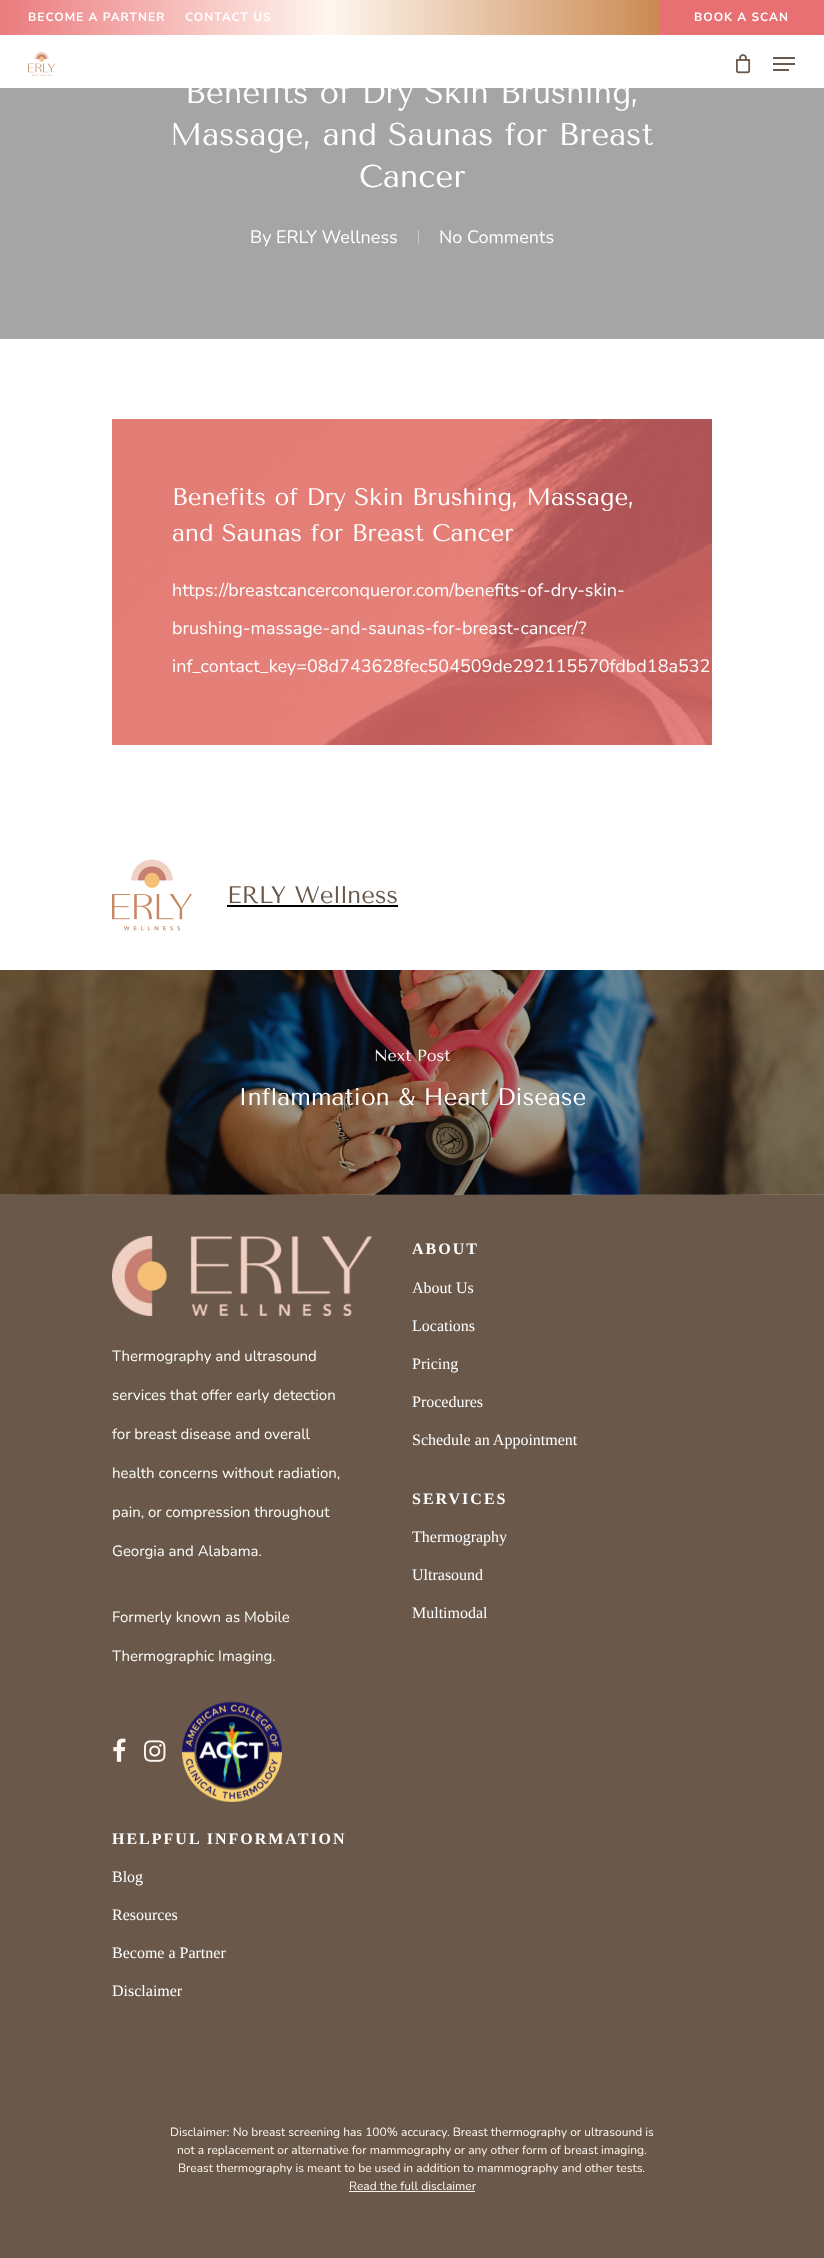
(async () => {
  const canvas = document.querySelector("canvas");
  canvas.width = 824;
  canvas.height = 2258;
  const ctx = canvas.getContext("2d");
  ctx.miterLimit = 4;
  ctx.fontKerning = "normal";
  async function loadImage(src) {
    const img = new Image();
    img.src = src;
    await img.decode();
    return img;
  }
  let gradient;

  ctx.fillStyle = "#ffffff";
  ctx.fillRect(0, 0, 824, 2258);
  gradient = ctx.createLinearGradient(0, 17, 659, 17);
  gradient.addColorStop(0, "#eb7b7e");
  gradient.addColorStop(0.5, "#fff6ef");
  gradient.addColorStop(1, "#cb8a52");
  ctx.fillStyle = gradient;
  ctx.fillRect(0, 0, 659, 35);
  ctx.fillStyle = "#e87073";
  ctx.fillRect(659, 0, 165, 35);
  ctx.drawImage(await loadImage("img/1.png"), 28, 52, 27, 24);
  ctx.drawImage(await loadImage("img/2.png"), 736, 54, 15, 20);
  for (const [x, y, w, h, color] of [
    [773, 57, 22, 2, "#6a584a"],
    [773, 69, 16, 2, "#6a584a"],
    [773, 63, 22, 2, "#6a584a"],
    [0, 88, 824, 251, "#a5a5a5"],
    [418, 230, 1, 14, "#c9c9c9"],
    [112, 419, 600, 326, "#e87073"],
  ]) {
    ctx.fillStyle = color;
    ctx.fillRect(x, y, w, h);
  }
  ctx.drawImage(await loadImage("img/3.png"), 112, 419, 600, 326);
  ctx.drawImage(await loadImage("img/4.png"), 112, 859, 80, 72);
  ctx.fillStyle = "#000000";
  ctx.fillRect(227, 905, 171, 2);
  ctx.drawImage(await loadImage("img/5.png"), 0, 970, 824, 225);
  ctx.fillStyle = "#6a584a";
  ctx.fillRect(0, 1195, 824, 1063);
  ctx.drawImage(await loadImage("img/6.png"), 112, 1236, 260, 80);
  ctx.drawImage(await loadImage("img/7.png"), 113, 1738, 13, 24);
  ctx.drawImage(await loadImage("img/8.png"), 144, 1740, 22, 22);
  ctx.drawImage(await loadImage("img/9.png"), 182, 1701, 100, 101);
  ctx.fillStyle = "#fff8f1";
  ctx.fillRect(349, 2191, 126, 1);
  ctx.letterSpacing = "1px";
  ctx.font = "200 12px Nunito Sans";
  ctx.fillStyle = "#ffffff";
  for (const [text, x, y] of [
    ["BECOME A PARTNER", 28, 21],
    ["CONTACT US", 185, 21],
    ["BOOK A SCAN", 694, 21],
  ]) {
    ctx.fillText(text, x, y);
  }
  ctx.letterSpacing = "0px";
  ctx.font = "31.5px Tenor Sans";
  for (const [text, x, y] of [
    ["Benefits of Dry Skin Brushing,", 185, 103],
    ["Massage, and Saunas for Breast", 170, 145],
    ["Cancer", 359, 187],
  ]) {
    ctx.fillText(text, x, y);
  }
  ctx.font = "18px Nunito";
  for (const [text, x, y] of [
    ["By", 250, 243],
    ["ERLY Wellness", 276, 243],
    ["No Comments", 439, 243],
  ]) {
    ctx.fillText(text, x, y);
  }
  ctx.font = "24px Tenor Sans";
  ctx.fillText("Benefits of Dry Skin Brushing, Massage,", 172, 505);
  ctx.fillText("and Saunas for Breast Cancer", 172, 541);
  ctx.font = "18px Nunito";
  for (const [text, x, y] of [
    ["https://breastcancerconqueror.com/benefits-of-dry-skin-", 172, 596],
    ["brushing-massage-and-saunas-for-breast-cancer/?", 172, 634],
    ["inf_contact_key=08d743628fec504509de292115570fdbd18a532", 172, 672],
  ]) {
    ctx.fillText(text, x, y);
  }
  ctx.font = "24px Tenor Sans";
  ctx.fillStyle = "#6a584a";
  ctx.fillText("ERLY Wellness", 227, 903);
  ctx.font = "16px Tenor Sans";
  ctx.fillStyle = "#ffffff";
  ctx.fillText("Next Post", 374, 1061);
  ctx.font = "24px Tenor Sans";
  ctx.fillText("Inflammation & Heart Disease", 238, 1105);
  ctx.font = "15px Nunito";
  ctx.fillStyle = "#fcfcf7";
  for (const [text, x, y] of [
    ["Thermography and ultrasound", 112, 1361],
    ["services that offer early detection", 112, 1400],
    ["for breast disease and overall", 112, 1439],
    ["health concerns without radiation,", 112, 1478],
    ["pain, or compression throughout", 112, 1517],
    ["Georgia and Alabama.", 112, 1556],
    ["Formerly known as Mobile", 112, 1622],
    ["Thermographic Imaging.", 112, 1661],
  ]) {
    ctx.fillText(text, x, y);
  }
  ctx.letterSpacing = "2px";
  ctx.font = "bold 16px Liberation Serif";
  ctx.fillStyle = "#ffffff";
  ctx.fillText("ABOUT", 412, 1254);
  ctx.letterSpacing = "0px";
  ctx.font = "16px Liberation Serif";
  for (const [text, x, y] of [
    ["About Us", 412, 1293],
    ["Locations", 412, 1331],
    ["Pricing", 412, 1369],
    ["Procedures", 412, 1407],
    ["Schedule an Appointment", 412, 1445],
  ]) {
    ctx.fillText(text, x, y);
  }
  ctx.letterSpacing = "2px";
  ctx.font = "bold 16px Liberation Serif";
  ctx.fillText("SERVICES", 412, 1504);
  ctx.letterSpacing = "0px";
  ctx.font = "16px Liberation Serif";
  for (const [text, x, y] of [
    ["Thermography", 412, 1542],
    ["Ultrasound", 412, 1580],
    ["Multimodal", 412, 1618],
  ]) {
    ctx.fillText(text, x, y);
  }
  ctx.letterSpacing = "2px";
  ctx.font = "bold 16px Liberation Serif";
  ctx.fillText("HELPFUL INFORMATION", 112, 1844);
  ctx.letterSpacing = "0px";
  ctx.font = "16px Liberation Serif";
  for (const [text, x, y] of [
    ["Blog", 112, 1882],
    ["Resources", 112, 1920],
    ["Become a Partner", 112, 1958],
    ["Disclaimer", 112, 1996],
  ]) {
    ctx.fillText(text, x, y);
  }
  ctx.font = "12px Nunito";
  ctx.fillStyle = "#fff8f1";
  for (const [text, x, y] of [
    ["Disclaimer: No breast screening has 100% accuracy. Breast thermography or ultrasound is", 170, 2136],
    ["not a replacement or alternative for mammography or any other form of breast imaging.", 177, 2154],
    ["Breast thermography is meant to be used in addition to mammography and other tests.", 178, 2172],
    ["Read the full disclaimer", 349, 2190],
  ]) {
    ctx.fillText(text, x, y);
  }
})();
